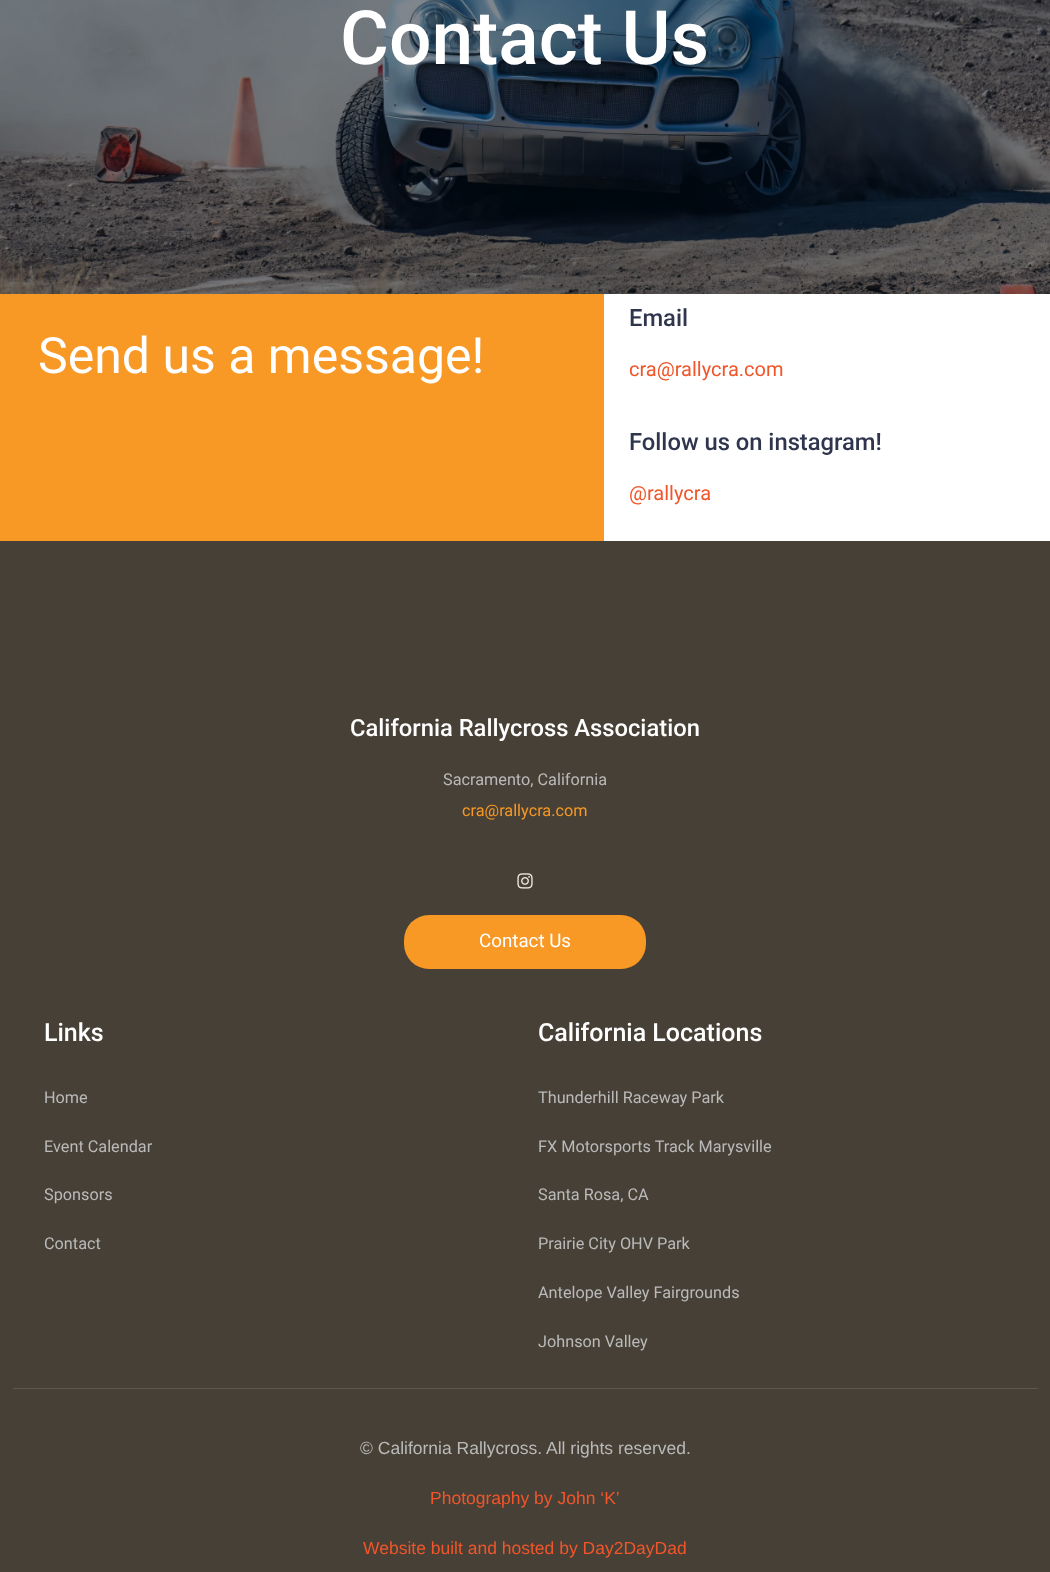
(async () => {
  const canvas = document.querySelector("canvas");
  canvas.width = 1050;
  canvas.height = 1572;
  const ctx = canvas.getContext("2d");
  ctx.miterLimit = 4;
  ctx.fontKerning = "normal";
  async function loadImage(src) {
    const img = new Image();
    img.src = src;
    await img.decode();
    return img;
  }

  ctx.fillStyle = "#ffffff";
  ctx.fillRect(0, 0, 1050, 1572);
  ctx.drawImage(await loadImage("img/1.png"), 0, 0, 1050, 294);
  ctx.fillStyle = "#f89825";
  ctx.fillRect(0, 294, 604, 247);
  ctx.fillStyle = "#474036";
  ctx.fillRect(0, 541, 1050, 1031);
  ctx.drawImage(await loadImage("img/2.png"), 517, 873, 16, 16);
  ctx.fillStyle = "#f89825";
  ctx.beginPath();
  ctx.roundRect(404, 915, 242, 54, 25);
  ctx.fill();
  ctx.fillStyle = "#5e5850";
  ctx.fillRect(13, 1388, 1025, 1);
  ctx.font = "500 75px Roboto";
  ctx.fillStyle = "#ffffff";
  ctx.fillText("Contact Us", 340, 64);
  ctx.font = "50px Roboto";
  ctx.fillText("Send us a message!", 38, 373);
  ctx.font = "500 23.75px Roboto";
  ctx.fillStyle = "#2f354d";
  ctx.fillText("Email", 629, 326);
  ctx.font = "20px Roboto";
  ctx.fillStyle = "#f1562a";
  ctx.fillText("cra@rallycra.com", 629, 376);
  ctx.font = "500 23.75px Roboto";
  ctx.fillStyle = "#2f354d";
  ctx.fillText("Follow us on instagram!", 629, 450);
  ctx.font = "20px Roboto";
  ctx.fillStyle = "#f1562a";
  ctx.fillText("@rallycra", 629, 500);
  ctx.font = "500 23.75px Roboto";
  ctx.fillStyle = "#ffffff";
  ctx.fillText("California Rallycross Association", 350, 736);
  ctx.font = "16.25px Roboto";
  ctx.fillStyle = "#bababa";
  ctx.fillText("Sacramento, California", 443, 785);
  ctx.fillStyle = "#f89825";
  ctx.fillText("cra@rallycra.com", 462, 816);
  ctx.font = "18.75px Roboto";
  ctx.fillStyle = "#ffffff";
  ctx.fillText("Contact Us", 479, 947);
  ctx.font = "500 25px Roboto";
  ctx.fillText("Links", 44, 1041);
  ctx.font = "16.25px Roboto";
  ctx.fillStyle = "#bababa";
  for (const [text, x, y] of [
    ["Home", 44, 1103],
    ["Event Calendar", 44, 1152],
    ["Sponsors", 44, 1200],
    ["Contact", 44, 1249],
  ]) {
    ctx.fillText(text, x, y);
  }
  ctx.font = "500 25px Roboto";
  ctx.fillStyle = "#ffffff";
  ctx.fillText("California Locations", 538, 1041);
  ctx.font = "16.25px Roboto";
  ctx.fillStyle = "#bababa";
  for (const [text, x, y] of [
    ["Thunderhill Raceway Park", 538, 1103],
    ["FX Motorsports Track Marysville", 538, 1152],
    ["Santa Rosa, CA", 538, 1200],
    ["Prairie City OHV Park", 538, 1249],
    ["Antelope Valley Fairgrounds", 538, 1298],
    ["Johnson Valley", 538, 1347],
  ]) {
    ctx.fillText(text, x, y);
  }
  ctx.font = "17.5px Liberation Sans";
  ctx.fillText("© California Rallycross. All rights reserved.", 360, 1454);
  ctx.fillStyle = "#f1562a";
  ctx.fillText("Photography by John ‘K’", 430, 1504);
  ctx.fillText("Website built and hosted by Day2DayDad", 363, 1554);
})();
